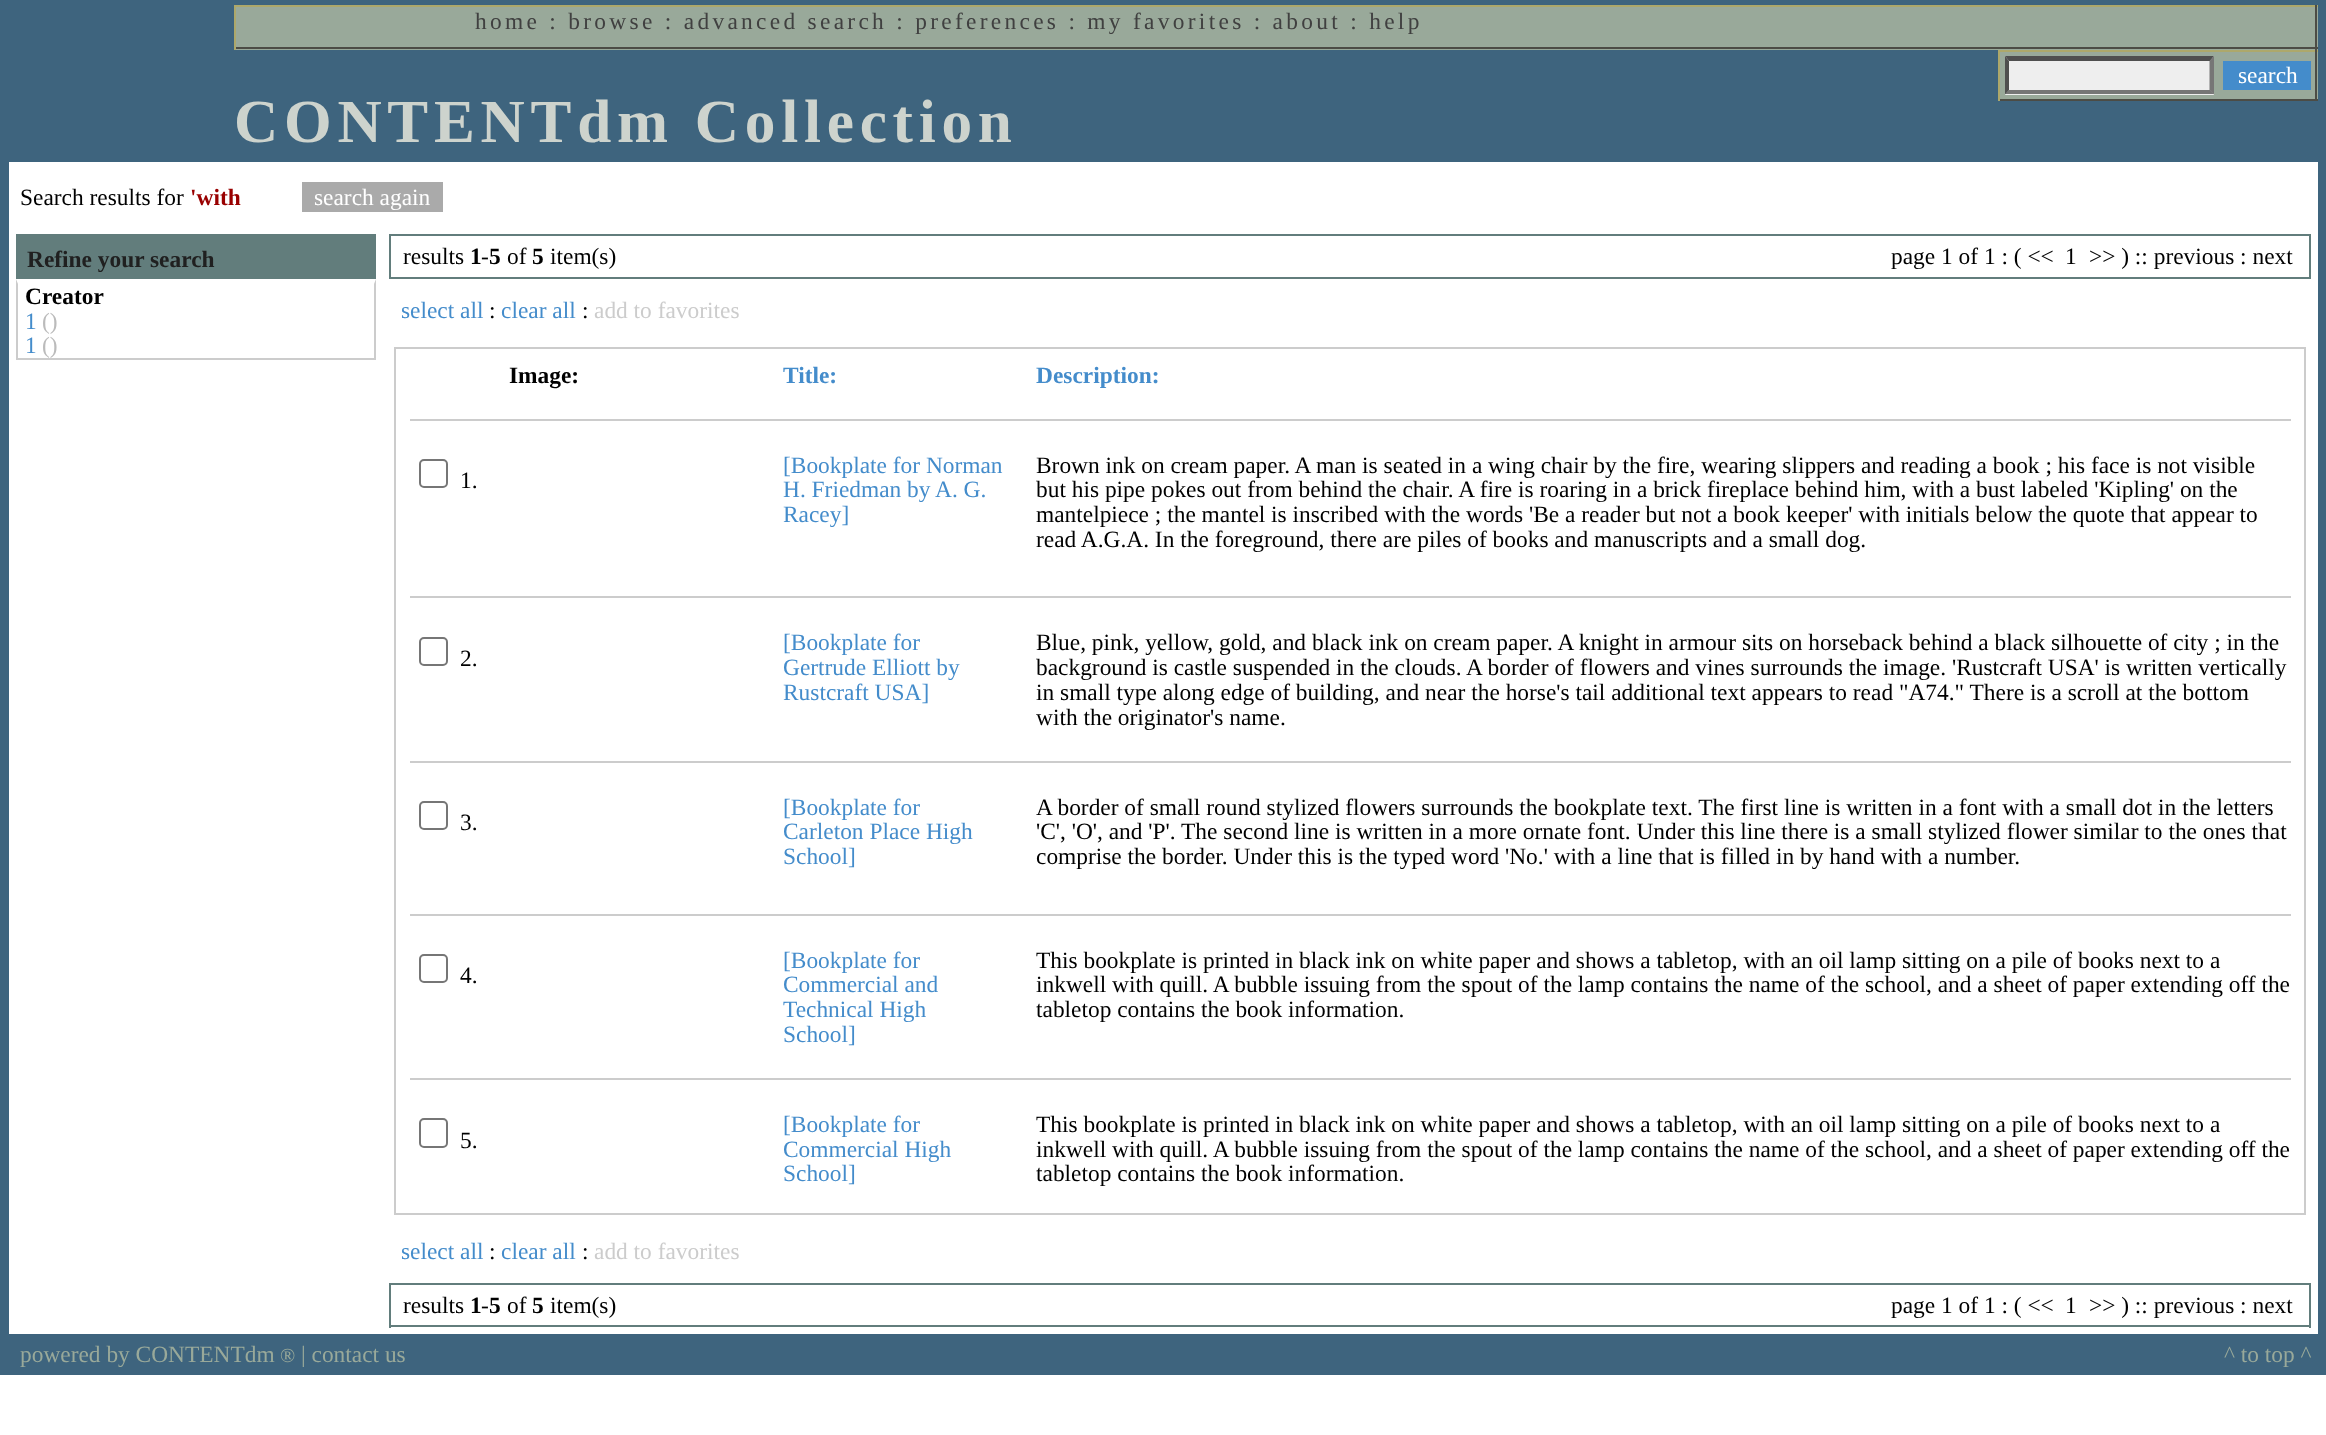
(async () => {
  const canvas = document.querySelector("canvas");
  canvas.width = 2326;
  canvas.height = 1435;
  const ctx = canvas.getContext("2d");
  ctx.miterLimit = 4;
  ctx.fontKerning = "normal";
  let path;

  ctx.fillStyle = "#ffffff";
  ctx.fillRect(0, 0, 2326, 1435);
  for (const [x, y, w, h, color] of [
    [0, 0, 9, 1375, "#3e647e"],
    [9, 0, 2309, 162, "#3e647e"],
    [236, 7, 2082, 43, "#99a99a"],
    [234, 5, 2084, 2, "#ada86b"],
    [234, 47, 2057, 2, "#4c4c45"],
    [234, 5, 2, 45, "#ada86b"],
    [2315, 5, 2, 45, "#4c4c45"],
    [2291, 47, 27, 2, "#4c4c45"],
    [2000, 52, 318, 47, "#99a99a"],
    [1998, 50, 320, 2, "#ada86b"],
    [1998, 99, 221, 2, "#4c4c45"],
    [1998, 50, 2, 51, "#ada86b"],
    [2005, 56, 209, 39, "#eeeeee"],
  ]) {
    ctx.fillStyle = color;
    ctx.fillRect(x, y, w, h);
  }
  ctx.fillStyle = "#4f4f4f";
  path = new Path2D("M2005 56H2214L2210 61H2009Z");
  ctx.fill(path);
  ctx.fillStyle = "#767676";
  path = new Path2D("M2214 56V94.5L2209.5 90V61Z");
  ctx.fill(path);
  path = new Path2D("M2214 94H2005L2009 90H2210Z");
  ctx.fill(path);
  ctx.fillStyle = "#4f4f4f";
  path = new Path2D("M2005 94.5V56L2009 61V90Z");
  ctx.fill(path);
  for (const [x, y, w, h, color] of [
    [2315, 50, 2, 51, "#4c4c45"],
    [2219, 99, 99, 2, "#4c4c45"],
    [2223, 61, 88, 29, "#448ccb"],
    [2318, 0, 8, 1375, "#3e647e"],
    [302, 182, 141, 30, "#aaaaaa"],
    [16, 234, 360, 45, "#627d7c"],
  ]) {
    ctx.fillStyle = color;
    ctx.fillRect(x, y, w, h);
  }
  ctx.fillStyle = "#cccccc";
  path = new Path2D("M376 279V360L374 358V284Z");
  ctx.fill(path);
  ctx.fillRect(16, 358, 360, 2);
  path = new Path2D("M16 360V279L18 284V358Z");
  ctx.fill(path);
  for (const [x, y, w, h, color] of [
    [389, 234, 1922, 2, "#627d7c"],
    [389, 277, 1904, 2, "#627d7c"],
    [389, 234, 2, 45, "#627d7c"],
    [2309, 234, 2, 45, "#627d7c"],
    [2293, 277, 18, 2, "#627d7c"],
  ]) {
    ctx.fillStyle = color;
    ctx.fillRect(x, y, w, h);
  }
  ctx.strokeStyle = "#cccccc";
  ctx.lineWidth = 2;
  ctx.strokeRect(395, 348, 1910, 866);
  ctx.fillStyle = "#cccccc";
  ctx.fillRect(410, 419, 1881, 2);
  ctx.beginPath();
  ctx.roundRect(420, 460, 27, 27, 4);
  ctx.strokeStyle = "#767676";
  ctx.stroke();
  ctx.fillRect(410, 596, 1881, 2);
  ctx.beginPath();
  ctx.roundRect(420, 638, 27, 27, 4);
  ctx.stroke();
  ctx.fillRect(410, 761, 1881, 2);
  ctx.beginPath();
  ctx.roundRect(420, 802, 27, 27, 4);
  ctx.stroke();
  ctx.fillRect(410, 914, 1881, 2);
  ctx.beginPath();
  ctx.roundRect(420, 955, 27, 27, 4);
  ctx.stroke();
  ctx.fillRect(410, 1078, 1881, 2);
  ctx.beginPath();
  ctx.roundRect(420, 1119, 27, 28, 4);
  ctx.stroke();
  for (const [x, y, w, h, color] of [
    [389, 1283, 1922, 2, "#627d7c"],
    [389, 1325, 1904, 2, "#627d7c"],
    [389, 1283, 2, 45, "#627d7c"],
    [2309, 1283, 2, 45, "#627d7c"],
    [2293, 1325, 18, 2, "#627d7c"],
    [9, 1334, 2309, 41, "#3e647e"],
  ]) {
    ctx.fillStyle = color;
    ctx.fillRect(x, y, w, h);
  }
  ctx.letterSpacing = "3.3px";
  ctx.font = "23.4px Liberation Serif";
  ctx.fillStyle = "#404040";
  ctx.fillText("home : browse : advanced search : preferences : my favorites : about : help", 475, 29);
  ctx.letterSpacing = "0px";
  ctx.fillStyle = "#ffffff";
  ctx.fillText("search", 2238, 83);
  ctx.letterSpacing = "5.75px";
  ctx.font = "bold 61.25px Liberation Serif";
  ctx.fillStyle = "#cdd3cd";
  ctx.fillText("CONTENTdm Collection", 234, 142);
  ctx.letterSpacing = "0px";
  ctx.font = "23.4px Liberation Serif";
  ctx.fillStyle = "#000000";
  ctx.fillText("Search results for", 20, 205);
  ctx.font = "bold 23.4px Liberation Serif";
  ctx.fillStyle = "#990000";
  ctx.fillText("'with", 190, 205);
  ctx.font = "23.4px Liberation Serif";
  ctx.fillStyle = "#ffffff";
  ctx.fillText("search again", 314, 205);
  ctx.font = "bold 23.4px Liberation Serif";
  ctx.fillStyle = "#202020";
  ctx.fillText("Refine your search", 27, 267);
  ctx.fillStyle = "#000000";
  ctx.fillText("Creator", 25, 304);
  ctx.font = "23.4px Liberation Serif";
  ctx.fillStyle = "#448ccb";
  ctx.fillText("1", 25, 329);
  ctx.fillStyle = "#bbbbbb";
  ctx.fillText("()", 42, 329);
  ctx.fillStyle = "#448ccb";
  ctx.fillText("1", 25, 353);
  ctx.fillStyle = "#bbbbbb";
  ctx.fillText("()", 42, 353);
  ctx.fillStyle = "#000000";
  ctx.fillText("results", 403, 264);
  ctx.font = "bold 23.4px Liberation Serif";
  ctx.fillText("1", 470, 264);
  ctx.font = "23.4px Liberation Serif";
  ctx.fillText("-", 481, 264);
  ctx.font = "bold 23.4px Liberation Serif";
  ctx.fillText("5", 489, 264);
  ctx.font = "23.4px Liberation Serif";
  ctx.fillText("of", 507, 264);
  ctx.font = "bold 23.4px Liberation Serif";
  ctx.fillText("5", 532, 264);
  ctx.font = "23.4px Liberation Serif";
  for (const [text, x, y] of [
    ["item(s)", 550, 264],
    ["page 1 of 1 : ( <<", 1891, 264],
    ["1", 2065, 264],
    [">> ) :: previous : next", 2089, 264],
  ]) {
    ctx.fillText(text, x, y);
  }
  ctx.fillStyle = "#448ccb";
  ctx.fillText("select all", 401, 318);
  ctx.fillStyle = "#000000";
  ctx.fillText(":", 489, 318);
  ctx.fillStyle = "#448ccb";
  ctx.fillText("clear all", 501, 318);
  ctx.fillStyle = "#000000";
  ctx.fillText(":", 582, 318);
  ctx.fillStyle = "#cccccc";
  ctx.fillText("add to favorites", 594, 318);
  ctx.font = "bold 23.4px Liberation Serif";
  ctx.fillStyle = "#000000";
  ctx.fillText("Image:", 509, 383);
  ctx.fillStyle = "#448ccb";
  ctx.fillText("Title:", 783, 383);
  ctx.fillText("Description:", 1036, 383);
  ctx.font = "23.4px Liberation Serif";
  ctx.fillStyle = "#000000";
  ctx.fillText("1.", 460, 488);
  ctx.fillStyle = "#448ccb";
  for (const [text, x, y] of [
    ["[Bookplate for Norman", 783, 473],
    ["H. Friedman by A. G.", 783, 497],
    ["Racey]", 783, 522],
  ]) {
    ctx.fillText(text, x, y);
  }
  ctx.fillStyle = "#000000";
  for (const [text, x, y] of [
    ["Brown ink on cream paper. A man is seated in a wing chair by the fire, wearing slippers and reading a book ; his face is not visible", 1036, 473],
    ["but his pipe pokes out from behind the chair. A fire is roaring in a brick fireplace behind him, with a bust labeled 'Kipling' on the", 1036, 497],
    ["mantelpiece ; the mantel is inscribed with the words 'Be a reader but not a book keeper' with initials below the quote that appear to", 1036, 522],
    ["read A.G.A. In the foreground, there are piles of books and manuscripts and a small dog.", 1036, 547],
    ["2.", 460, 666],
  ]) {
    ctx.fillText(text, x, y);
  }
  ctx.fillStyle = "#448ccb";
  for (const [text, x, y] of [
    ["[Bookplate for", 783, 650],
    ["Gertrude Elliott by", 783, 675],
    ["Rustcraft USA]", 783, 700],
  ]) {
    ctx.fillText(text, x, y);
  }
  ctx.fillStyle = "#000000";
  for (const [text, x, y] of [
    ["Blue, pink, yellow, gold, and black ink on cream paper. A knight in armour sits on horseback behind a black silhouette of city ; in the", 1036, 650],
    ["background is castle suspended in the clouds. A border of flowers and vines surrounds the image. 'Rustcraft USA' is written vertically", 1036, 675],
    ["in small type along edge of building, and near the horse's tail additional text appears to read \"A74.\" There is a scroll at the bottom", 1036, 700],
    ["with the originator's name.", 1036, 725],
    ["3.", 460, 830],
  ]) {
    ctx.fillText(text, x, y);
  }
  ctx.fillStyle = "#448ccb";
  for (const [text, x, y] of [
    ["[Bookplate for", 783, 815],
    ["Carleton Place High", 783, 839],
    ["School]", 783, 864],
  ]) {
    ctx.fillText(text, x, y);
  }
  ctx.fillStyle = "#000000";
  for (const [text, x, y] of [
    ["A border of small round stylized flowers surrounds the bookplate text. The first line is written in a font with a small dot in the letters", 1036, 815],
    ["'C', 'O', and 'P'. The second line is written in a more ornate font. Under this line there is a small stylized flower similar to the ones that", 1036, 839],
    ["comprise the border. Under this is the typed word 'No.' with a line that is filled in by hand with a number.", 1036, 864],
    ["4.", 460, 983],
  ]) {
    ctx.fillText(text, x, y);
  }
  ctx.fillStyle = "#448ccb";
  for (const [text, x, y] of [
    ["[Bookplate for", 783, 968],
    ["Commercial and", 783, 992],
    ["Technical High", 783, 1017],
    ["School]", 783, 1042],
  ]) {
    ctx.fillText(text, x, y);
  }
  ctx.fillStyle = "#000000";
  for (const [text, x, y] of [
    ["This bookplate is printed in black ink on white paper and shows a tabletop, with an oil lamp sitting on a pile of books next to a", 1036, 968],
    ["inkwell with quill. A bubble issuing from the spout of the lamp contains the name of the school, and a sheet of paper extending off the", 1036, 992],
    ["tabletop contains the book information.", 1036, 1017],
    ["5.", 460, 1148],
  ]) {
    ctx.fillText(text, x, y);
  }
  ctx.fillStyle = "#448ccb";
  for (const [text, x, y] of [
    ["[Bookplate for", 783, 1132],
    ["Commercial High", 783, 1157],
    ["School]", 783, 1181],
  ]) {
    ctx.fillText(text, x, y);
  }
  ctx.fillStyle = "#000000";
  for (const [text, x, y] of [
    ["This bookplate is printed in black ink on white paper and shows a tabletop, with an oil lamp sitting on a pile of books next to a", 1036, 1132],
    ["inkwell with quill. A bubble issuing from the spout of the lamp contains the name of the school, and a sheet of paper extending off the", 1036, 1157],
    ["tabletop contains the book information.", 1036, 1181],
  ]) {
    ctx.fillText(text, x, y);
  }
  ctx.fillStyle = "#448ccb";
  ctx.fillText("select all", 401, 1259);
  ctx.fillStyle = "#000000";
  ctx.fillText(":", 489, 1259);
  ctx.fillStyle = "#448ccb";
  ctx.fillText("clear all", 501, 1259);
  ctx.fillStyle = "#000000";
  ctx.fillText(":", 582, 1259);
  ctx.fillStyle = "#cccccc";
  ctx.fillText("add to favorites", 594, 1259);
  ctx.fillStyle = "#000000";
  ctx.fillText("results", 403, 1313);
  ctx.font = "bold 23.4px Liberation Serif";
  ctx.fillText("1", 470, 1313);
  ctx.font = "23.4px Liberation Serif";
  ctx.fillText("-", 481, 1313);
  ctx.font = "bold 23.4px Liberation Serif";
  ctx.fillText("5", 489, 1313);
  ctx.font = "23.4px Liberation Serif";
  ctx.fillText("of", 507, 1313);
  ctx.font = "bold 23.4px Liberation Serif";
  ctx.fillText("5", 532, 1313);
  ctx.font = "23.4px Liberation Serif";
  for (const [text, x, y] of [
    ["item(s)", 550, 1313],
    ["page 1 of 1 : ( <<", 1891, 1313],
    ["1", 2065, 1313],
    [">> ) :: previous : next", 2089, 1313],
  ]) {
    ctx.fillText(text, x, y);
  }
  ctx.fillStyle = "#99a99a";
  ctx.fillText("powered by CONTENTdm", 20, 1362);
  ctx.font = "20px Liberation Serif";
  ctx.fillText("®", 280, 1362);
  ctx.font = "23.4px Liberation Serif";
  ctx.fillText("| contact us", 301, 1362);
  ctx.fillText("^ to top ^", 2224, 1362);
})();
